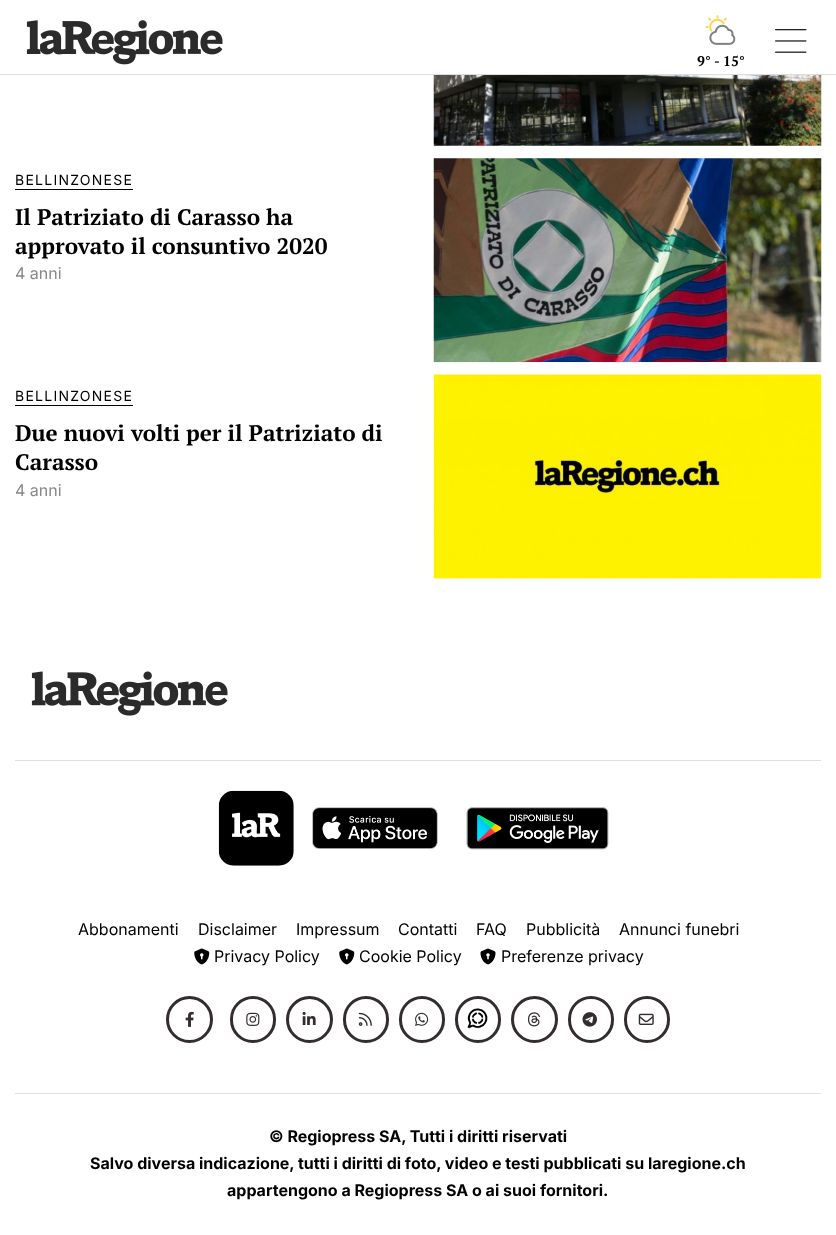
(async () => {
  const canvas = document.querySelector("canvas");
  canvas.width = 836;
  canvas.height = 1235;
  const ctx = canvas.getContext("2d");
  ctx.miterLimit = 4;
  ctx.fontKerning = "normal";
  async function loadImage(src) {
    const img = new Image();
    img.src = src;
    await img.decode();
    return img;
  }

  ctx.fillStyle = "#ffffff";
  ctx.fillRect(0, 0, 836, 1235);
  ctx.fillStyle = "#dddddd";
  ctx.fillRect(0, 74, 836, 1);
  ctx.drawImage(await loadImage("img/1.png"), 26, 20, 197, 45);
  ctx.drawImage(await loadImage("img/2.png"), 775, 29, 32, 24);
  ctx.drawImage(await loadImage("img/3.png"), 705, 15, 31, 30);
  ctx.drawImage(await loadImage("img/4.png"), 433, 75, 389, 71);
  ctx.fillStyle = "#000000";
  ctx.fillRect(15, 189, 118, 1);
  ctx.drawImage(await loadImage("img/5.png"), 433, 158, 389, 204);
  for (const [x, y, w, h, color] of [
    [434, 362, 387, 1, "#f5f7fa"],
    [15, 405, 118, 1, "#000000"],
    [434, 578, 387, 1, "#f5f7fa"],
  ]) {
    ctx.fillStyle = color;
    ctx.fillRect(x, y, w, h);
  }
  ctx.drawImage(await loadImage("img/6.png"), 433, 374, 389, 205);
  ctx.drawImage(await loadImage("img/7.png"), 31, 671, 197, 45);
  ctx.fillStyle = "#e0e0e0";
  ctx.fillRect(15, 760, 806, 1);
  ctx.drawImage(await loadImage("img/8.png"), 218, 790, 76, 76);
  ctx.drawImage(await loadImage("img/9.png"), 312, 807, 126, 42);
  ctx.drawImage(await loadImage("img/10.png"), 466, 807, 143, 43);
  ctx.drawImage(await loadImage("img/11.png"), 194, 948, 16, 17);
  ctx.drawImage(await loadImage("img/11.png"), 339, 948, 16, 17);
  ctx.drawImage(await loadImage("img/12.png"), 480, 948, 16, 17);
  ctx.beginPath();
  ctx.arc(189.5, 1019.5, 22, 0, Math.PI * 2);
  ctx.strokeStyle = "#332d2d";
  ctx.lineWidth = 3;
  ctx.stroke();
  ctx.drawImage(await loadImage("img/13.png"), 185, 1011, 9, 16);
  ctx.beginPath();
  ctx.roundRect(231.5, 997.5, 43, 44, 21.5);
  ctx.stroke();
  ctx.drawImage(await loadImage("img/14.png"), 246, 1012, 14, 14);
  ctx.beginPath();
  ctx.arc(309.5, 1019.5, 22, 0, Math.PI * 2);
  ctx.stroke();
  ctx.drawImage(await loadImage("img/15.png"), 302, 1011, 14, 14);
  ctx.beginPath();
  ctx.roundRect(344.5, 997.5, 43, 44, 21.5);
  ctx.stroke();
  ctx.drawImage(await loadImage("img/16.png"), 358, 1012, 14, 14);
  ctx.beginPath();
  ctx.roundRect(400.5, 997.5, 43, 44, 21.5);
  ctx.stroke();
  ctx.drawImage(await loadImage("img/17.png"), 415, 1012, 14, 14);
  ctx.beginPath();
  ctx.roundRect(456.5, 997.5, 43, 44, 21.5);
  ctx.stroke();
  ctx.drawImage(await loadImage("img/18.png"), 467, 1008, 21, 21);
  ctx.beginPath();
  ctx.arc(534.5, 1019.5, 22, 0, Math.PI * 2);
  ctx.stroke();
  ctx.drawImage(await loadImage("img/19.png"), 528, 1012, 12, 15);
  ctx.beginPath();
  ctx.roundRect(569.5, 997.5, 43, 44, 21.5);
  ctx.stroke();
  ctx.drawImage(await loadImage("img/20.png"), 582, 1012, 15, 15);
  ctx.beginPath();
  ctx.roundRect(625.5, 997.5, 43, 44, 21.5);
  ctx.stroke();
  ctx.drawImage(await loadImage("img/21.png"), 638, 1013, 16, 12);
  ctx.fillRect(15, 1093, 806, 1);
  ctx.font = "bold 14px PT Serif";
  ctx.fillStyle = "#000000";
  ctx.fillText("9° - 15°", 697, 66);
  ctx.letterSpacing = "1.25px";
  ctx.font = "14px Inter";
  ctx.fillText("BELLINZONESE", 15, 185);
  ctx.letterSpacing = "0px";
  ctx.font = "bold 22.5px PT Serif";
  ctx.fillText("Il Patriziato di Carasso ha", 15, 225);
  ctx.fillText("approvato il consuntivo 2020", 15, 254);
  ctx.font = "16px Inter";
  ctx.fillStyle = "#888888";
  ctx.fillText("4 anni", 15, 279);
  ctx.letterSpacing = "1.25px";
  ctx.font = "14px Inter";
  ctx.fillStyle = "#000000";
  ctx.fillText("BELLINZONESE", 15, 401);
  ctx.letterSpacing = "0px";
  ctx.font = "bold 22.5px PT Serif";
  ctx.fillText("Due nuovi volti per il Patriziato di", 15, 441);
  ctx.fillText("Carasso", 15, 470);
  ctx.font = "16px Inter";
  ctx.fillStyle = "#888888";
  ctx.fillText("4 anni", 15, 496);
  ctx.fillStyle = "#000000";
  for (const [text, x, y] of [
    ["Abbonamenti", 78, 935],
    ["Disclaimer", 198, 935],
    ["Impressum", 296, 935],
    ["Contatti", 398, 935],
    ["FAQ", 476, 935],
    ["Pubblicità", 526, 935],
    ["Annunci funebri", 619, 935],
    ["Privacy Policy", 214, 962],
    ["Cookie Policy", 359, 962],
    ["Preferenze privacy", 501, 962],
  ]) {
    ctx.fillText(text, x, y);
  }
  ctx.font = "bold 16px Inter";
  for (const [text, x, y] of [
    ["© Regiopress SA, Tutti i diritti riservati", 269, 1142],
    ["Salvo diversa indicazione, tutti i diritti di foto, video e testi pubblicati su laregione.ch", 90, 1169],
    ["appartengono a Regiopress SA o ai suoi fornitori.", 227, 1196],
  ]) {
    ctx.fillText(text, x, y);
  }
})();
